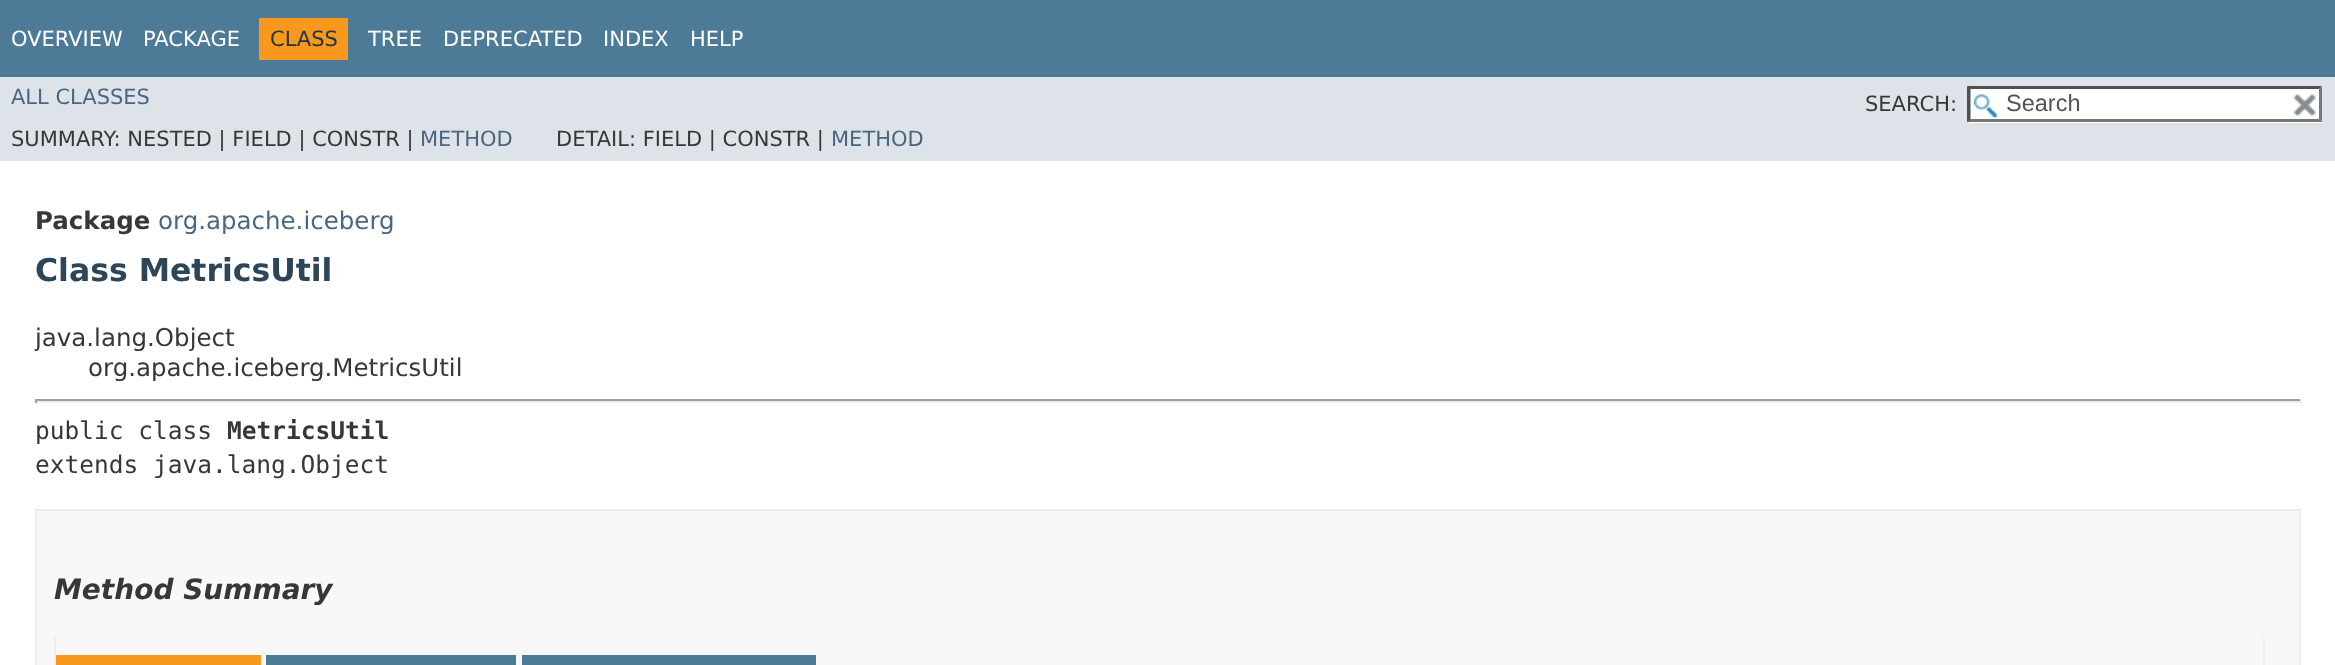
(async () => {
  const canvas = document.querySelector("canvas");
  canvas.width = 2335;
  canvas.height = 665;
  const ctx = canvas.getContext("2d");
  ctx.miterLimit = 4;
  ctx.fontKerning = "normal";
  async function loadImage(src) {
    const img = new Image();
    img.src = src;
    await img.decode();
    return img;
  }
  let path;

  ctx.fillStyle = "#ffffff";
  ctx.fillRect(0, 0, 2335, 665);
  for (const [x, y, w, h, color] of [
    [0, 0, 2335, 77, "#4d7a97"],
    [259, 18, 89, 42, "#f8981d"],
    [0, 77, 2335, 84, "#dee3e9"],
    [1967, 86, 355, 37, "#ffffff"],
  ]) {
    ctx.fillStyle = color;
    ctx.fillRect(x, y, w, h);
  }
  ctx.drawImage(await loadImage("img/1.png"), 1974, 94, 23, 24);
  ctx.fillStyle = "#4f4f4f";
  path = new Path2D("M1967 86H2322L2319 89H1970Z");
  ctx.fill(path);
  ctx.fillStyle = "#767676";
  path = new Path2D("M2322 86V122.5L2319 119V89Z");
  ctx.fill(path);
  path = new Path2D("M2322 122H1967L1970 119H2319Z");
  ctx.fill(path);
  ctx.fillStyle = "#4f4f4f";
  path = new Path2D("M1967 122.5V86L1970.5 89V119Z");
  ctx.fill(path);
  ctx.drawImage(await loadImage("img/2.png"), 2293, 94, 23, 22);
  for (const [x, y, w, h, color] of [
    [35, 399, 2266, 2, "#9f9f9f"],
    [2300, 399, 2, 4, "#eeeeee"],
    [35, 401, 2266, 2, "#eeeeee"],
    [35, 399, 2, 4, "#9f9f9f"],
  ]) {
    ctx.fillStyle = color;
    ctx.fillRect(x, y, w, h);
  }
  ctx.fillStyle = "#f8f8f8";
  ctx.beginPath();
  ctx.rect(36, 510, 2264, 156);
  ctx.fill();
  ctx.strokeStyle = "#ededed";
  ctx.lineWidth = 2;
  ctx.stroke();
  for (const [x, y, w, h, color] of [
    [2263, 637, 2, 28, "#eeeeee"],
    [54, 637, 2, 28, "#eeeeee"],
    [56, 655, 205, 10, "#f8981d"],
    [266, 655, 250, 10, "#4d7a97"],
    [522, 655, 294, 10, "#4d7a97"],
  ]) {
    ctx.fillStyle = color;
    ctx.fillRect(x, y, w, h);
  }
  ctx.font = "21px DejaVu Sans";
  ctx.fillStyle = "#ffffff";
  ctx.fillText("OVERVIEW", 11, 46);
  ctx.fillText("PACKAGE", 143, 46);
  ctx.fillStyle = "#253441";
  ctx.fillText("CLASS", 270, 46);
  ctx.fillStyle = "#ffffff";
  for (const [text, x, y] of [
    ["TREE", 368, 46],
    ["DEPRECATED", 443, 46],
    ["INDEX", 603, 46],
    ["HELP", 690, 46],
  ]) {
    ctx.fillText(text, x, y);
  }
  ctx.fillStyle = "#4a6782";
  ctx.fillText("ALL CLASSES", 11, 104);
  ctx.fillStyle = "#353833";
  ctx.fillText("SEARCH:", 1865, 111);
  ctx.font = "23.5px Liberation Sans";
  ctx.fillStyle = "#545454";
  ctx.fillText("Search", 2006, 111);
  ctx.font = "21px DejaVu Sans";
  ctx.fillStyle = "#353833";
  ctx.fillText("SUMMARY: NESTED | FIELD | CONSTR |", 11, 146);
  ctx.fillStyle = "#4a6782";
  ctx.fillText("METHOD", 420, 146);
  ctx.fillStyle = "#353833";
  ctx.fillText("DETAIL: FIELD | CONSTR |", 556, 146);
  ctx.fillStyle = "#4a6782";
  ctx.fillText("METHOD", 831, 146);
  ctx.font = "bold 24.5px DejaVu Sans";
  ctx.fillStyle = "#353833";
  ctx.fillText("Package", 35, 229);
  ctx.font = "24.5px DejaVu Sans";
  ctx.fillStyle = "#4a6782";
  ctx.fillText("org.apache.iceberg", 158, 229);
  ctx.font = "bold 31.5px DejaVu Sans";
  ctx.fillStyle = "#2c4557";
  ctx.fillText("Class MetricsUtil", 35, 281);
  ctx.font = "24.5px DejaVu Sans";
  ctx.fillStyle = "#353833";
  ctx.fillText("java.lang.Object", 35, 346);
  ctx.fillText("org.apache.iceberg.MetricsUtil", 88, 376);
  ctx.font = "24.5px DejaVu Sans Mono";
  ctx.fillText("public class", 35, 439);
  ctx.font = "bold 24.5px DejaVu Sans Mono";
  ctx.fillText("MetricsUtil", 227, 439);
  ctx.font = "24.5px DejaVu Sans Mono";
  ctx.fillText("extends java.lang.Object", 35, 473);
  ctx.font = "italic bold 28px DejaVu Sans";
  ctx.fillText("Method Summary", 54, 599);
})();
